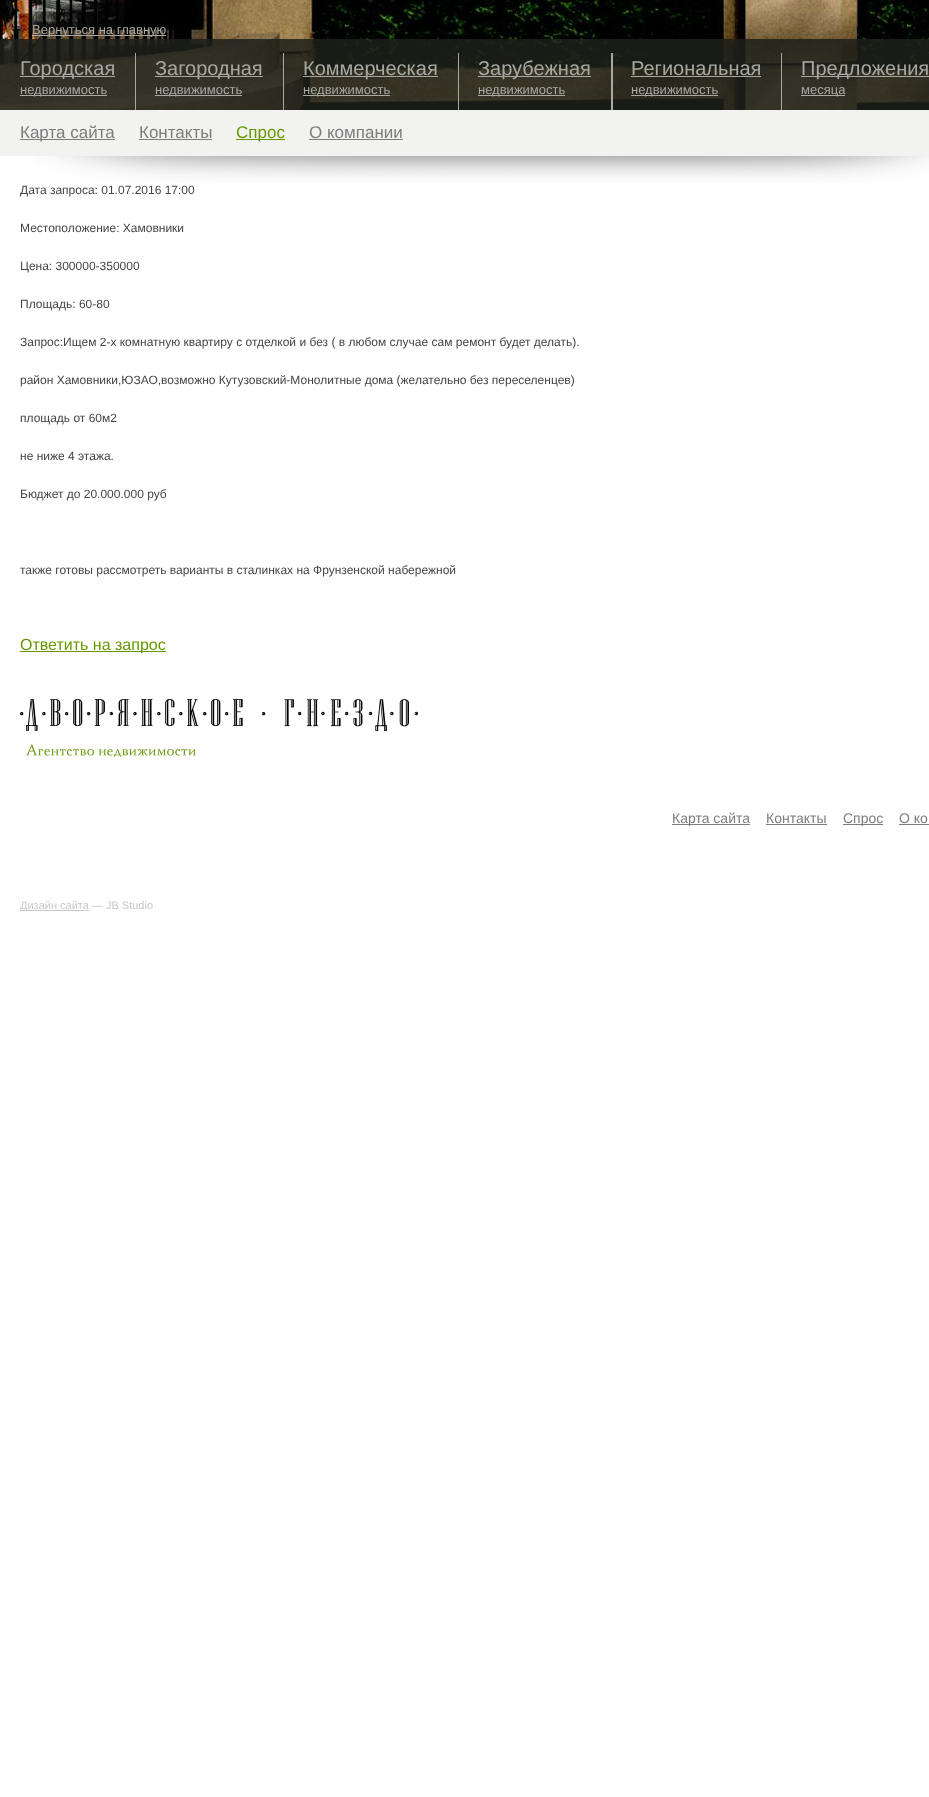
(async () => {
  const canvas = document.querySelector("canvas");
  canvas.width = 929;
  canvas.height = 1797;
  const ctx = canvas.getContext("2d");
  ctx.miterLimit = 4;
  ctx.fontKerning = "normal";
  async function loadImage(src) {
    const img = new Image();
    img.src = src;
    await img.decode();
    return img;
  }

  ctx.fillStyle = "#ffffff";
  ctx.fillRect(0, 0, 929, 1797);
  ctx.drawImage(await loadImage("img/1.png"), 0, 0, 929, 110);
  for (const [x, y, w, h, color] of [
    [32, 35, 134, 1, "#a7a9a2"],
    [20, 76, 95, 1, "#a7a9a2"],
    [20, 95, 87, 1, "#a7a9a2"],
    [135, 53, 1, 57, "#a7a9a2"],
    [155, 76, 108, 1, "#a7a9a2"],
    [155, 95, 87, 1, "#a7a9a2"],
    [283, 53, 1, 57, "#a7a9a2"],
    [303, 76, 135, 1, "#a7a9a2"],
    [303, 95, 87, 1, "#a7a9a2"],
    [458, 53, 1, 57, "#a7a9a2"],
    [478, 76, 113, 1, "#a7a9a2"],
    [478, 95, 87, 1, "#a7a9a2"],
    [611, 53, 2, 57, "#a7a9a2"],
    [631, 76, 130, 1, "#a7a9a2"],
    [631, 95, 87, 1, "#a7a9a2"],
    [781, 53, 1, 57, "#a7a9a2"],
    [801, 76, 128, 1, "#a7a9a2"],
    [801, 95, 44, 1, "#a7a9a2"],
    [0, 110, 929, 46, "#f2f3f1"],
    [20, 139, 95, 1, "#7d7d7d"],
    [139, 139, 73, 1, "#7d7d7d"],
    [236, 139, 49, 1, "#669900"],
    [309, 139, 94, 1, "#7d7d7d"],
  ]) {
    ctx.fillStyle = color;
    ctx.fillRect(x, y, w, h);
  }
  ctx.drawImage(await loadImage("img/2.png"), 33, 156, 896, 27);
  ctx.fillStyle = "#669900";
  ctx.fillRect(20, 651, 146, 1);
  ctx.drawImage(await loadImage("img/3.png"), 20, 699, 398, 58);
  for (const [x, y, w, h, color] of [
    [672, 824, 78, 1, "#7d7d7d"],
    [766, 824, 61, 1, "#7d7d7d"],
    [843, 824, 40, 1, "#7d7d7d"],
    [899, 824, 30, 1, "#7d7d7d"],
    [20, 910, 69, 1, "#c7c7c7"],
  ]) {
    ctx.fillStyle = color;
    ctx.fillRect(x, y, w, h);
  }
  ctx.font = "13px Liberation Sans";
  ctx.fillStyle = "#a7a9a2";
  ctx.fillText("Вернуться на главную", 32, 34);
  ctx.font = "20px Liberation Sans";
  ctx.fillText("Городская", 20, 75);
  ctx.font = "13px Liberation Sans";
  ctx.fillText("недвижимость", 20, 94);
  ctx.font = "20px Liberation Sans";
  ctx.fillText("Загородная", 155, 75);
  ctx.font = "13px Liberation Sans";
  ctx.fillText("недвижимость", 155, 94);
  ctx.font = "20px Liberation Sans";
  ctx.fillText("Коммерческая", 303, 75);
  ctx.font = "13px Liberation Sans";
  ctx.fillText("недвижимость", 303, 94);
  ctx.font = "20px Liberation Sans";
  ctx.fillText("Зарубежная", 478, 75);
  ctx.font = "13px Liberation Sans";
  ctx.fillText("недвижимость", 478, 94);
  ctx.font = "20px Liberation Sans";
  ctx.fillText("Региональная", 631, 75);
  ctx.font = "13px Liberation Sans";
  ctx.fillText("недвижимость", 631, 94);
  ctx.font = "20px Liberation Sans";
  ctx.fillText("Предложения", 801, 75);
  ctx.font = "13px Liberation Sans";
  ctx.fillText("месяца", 801, 94);
  ctx.font = "17px Liberation Sans";
  ctx.fillStyle = "#7d7d7d";
  ctx.fillText("Карта сайта", 20, 138);
  ctx.fillText("Контакты", 139, 138);
  ctx.fillStyle = "#669900";
  ctx.fillText("Спрос", 236, 138);
  ctx.fillStyle = "#7d7d7d";
  ctx.fillText("О компании", 309, 138);
  ctx.font = "12px Liberation Sans";
  ctx.fillStyle = "#454545";
  for (const [text, x, y] of [
    ["Дата запроса: 01.07.2016 17:00", 20, 194],
    ["Местоположение: Хамовники", 20, 232],
    ["Цена: 300000-350000", 20, 270],
    ["Площадь: 60-80", 20, 308],
    ["Запрос:Ищем 2-х комнатную квартиру с отделкой и без ( в любом случае сам ремонт будет делать).", 20, 346],
    ["район Хамовники,ЮЗАО,возможно Кутузовский-Монолитные дома (желательно без переселенцев)", 20, 384],
    ["площадь от 60м2", 20, 422],
    ["не ниже 4 этажа.", 20, 460],
    ["Бюджет до 20.000.000 руб", 20, 498],
    ["также готовы рассмотреть варианты в сталинках на Фрунзенской набережной", 20, 574],
  ]) {
    ctx.fillText(text, x, y);
  }
  ctx.font = "16px Liberation Sans";
  ctx.fillStyle = "#669900";
  ctx.fillText("Ответить на запрос", 20, 650);
  ctx.font = "14px Liberation Sans";
  ctx.fillStyle = "#7d7d7d";
  for (const [text, x, y] of [
    ["Карта сайта", 672, 823],
    ["Контакты", 766, 823],
    ["Спрос", 843, 823],
    ["О ко", 899, 823],
  ]) {
    ctx.fillText(text, x, y);
  }
  ctx.font = "11px Liberation Sans";
  ctx.fillStyle = "#c7c7c7";
  ctx.fillText("Дизайн сайта — JB Studio", 20, 909);
})();
